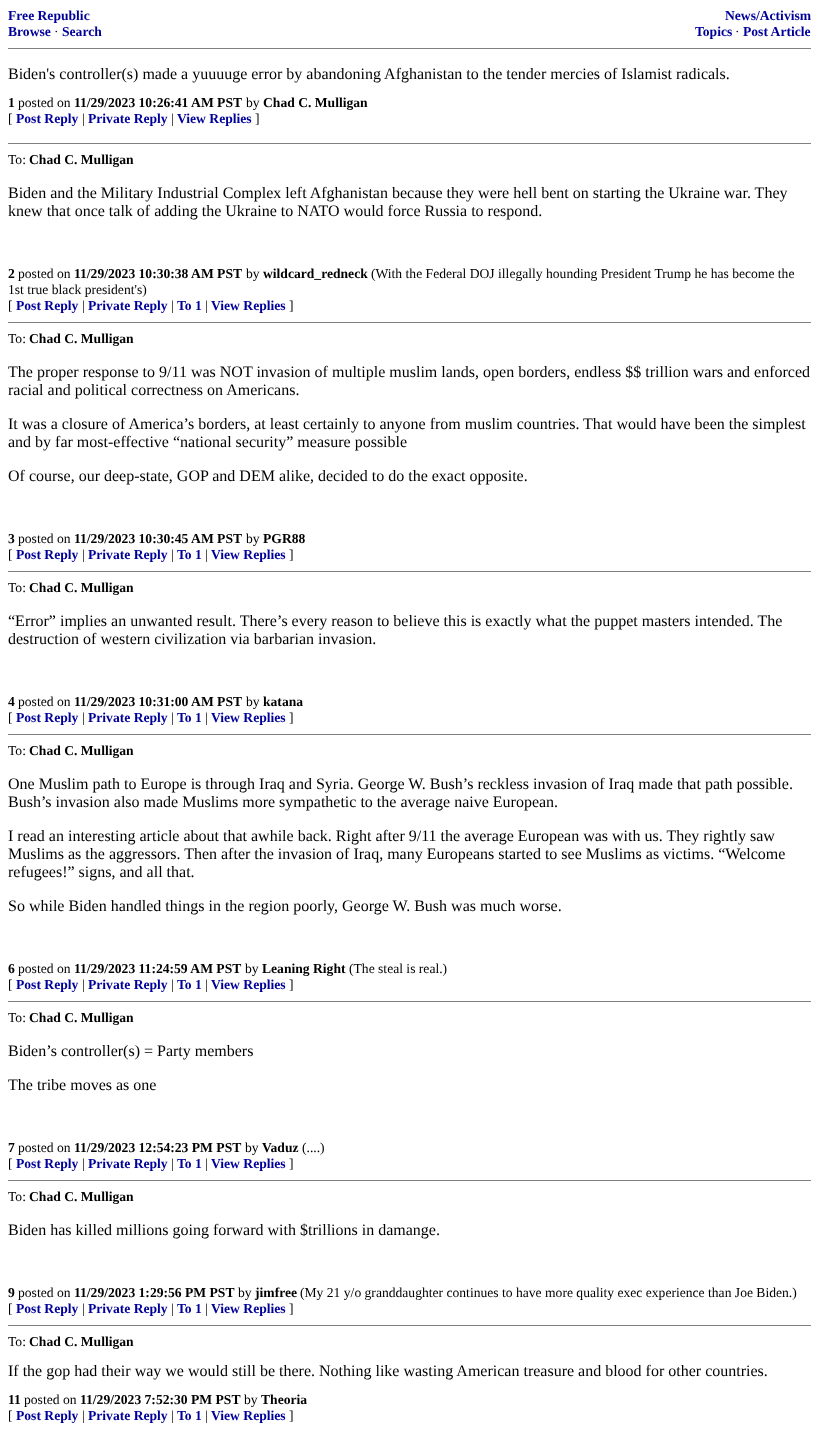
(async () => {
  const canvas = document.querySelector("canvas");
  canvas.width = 819;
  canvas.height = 1436;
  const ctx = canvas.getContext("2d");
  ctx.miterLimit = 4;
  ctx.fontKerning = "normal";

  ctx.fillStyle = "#ffffff";
  ctx.fillRect(0, 0, 819, 1436);
  for (const [x, y, w, h, color] of [
    [8, 48, 803, 1, "#808080"],
    [8, 143, 803, 1, "#808080"],
    [8, 322, 803, 1, "#808080"],
    [8, 571, 803, 1, "#808080"],
    [8, 734, 803, 1, "#808080"],
    [8, 1001, 803, 1, "#808080"],
    [8, 1180, 803, 1, "#808080"],
    [8, 1325, 803, 1, "#808080"],
  ]) {
    ctx.fillStyle = color;
    ctx.fillRect(x, y, w, h);
  }
  ctx.font = "bold 13.6px Liberation Serif";
  ctx.fillStyle = "#000099";
  ctx.fillText("Free Republic", 8, 20);
  ctx.fillText("Browse", 8, 36);
  ctx.font = "13.6px Liberation Serif";
  ctx.fillStyle = "#000000";
  ctx.fillText("·", 54, 36);
  ctx.font = "bold 13.6px Liberation Serif";
  ctx.fillStyle = "#000099";
  for (const [text, x, y] of [
    ["Search", 62, 36],
    ["News/Activism", 725, 20],
    ["Topics", 695, 36],
  ]) {
    ctx.fillText(text, x, y);
  }
  ctx.font = "13.6px Liberation Serif";
  ctx.fillStyle = "#000000";
  ctx.fillText("·", 735, 36);
  ctx.font = "bold 13.6px Liberation Serif";
  ctx.fillStyle = "#000099";
  ctx.fillText("Post Article", 743, 36);
  ctx.font = "16px Liberation Serif";
  ctx.fillStyle = "#000000";
  ctx.fillText("Biden's controller(s) made a yuuuuge error by abandoning Afghanistan to the tender mercies of Islamist radicals.", 8, 79);
  ctx.font = "bold 13.6px Liberation Serif";
  ctx.fillText("1", 8, 107);
  ctx.font = "13.6px Liberation Serif";
  ctx.fillText("posted on", 18, 107);
  ctx.font = "bold 13.6px Liberation Serif";
  ctx.fillText("11/29/2023 10:26:41 AM PST", 74, 107);
  ctx.font = "13.6px Liberation Serif";
  ctx.fillText("by", 246, 107);
  ctx.font = "bold 13.6px Liberation Serif";
  ctx.fillText("Chad C. Mulligan", 263, 107);
  ctx.font = "13.6px Liberation Serif";
  ctx.fillText("[", 8, 123);
  ctx.font = "bold 13.6px Liberation Serif";
  ctx.fillStyle = "#000099";
  ctx.fillText("Post Reply", 16, 123);
  ctx.font = "13.6px Liberation Serif";
  ctx.fillStyle = "#000000";
  ctx.fillText("|", 82, 123);
  ctx.font = "bold 13.6px Liberation Serif";
  ctx.fillStyle = "#000099";
  ctx.fillText("Private Reply", 88, 123);
  ctx.font = "13.6px Liberation Serif";
  ctx.fillStyle = "#000000";
  ctx.fillText("|", 171, 123);
  ctx.font = "bold 13.6px Liberation Serif";
  ctx.fillStyle = "#000099";
  ctx.fillText("View Replies", 177, 123);
  ctx.font = "13.6px Liberation Serif";
  ctx.fillStyle = "#000000";
  ctx.fillText("]", 255, 123);
  ctx.fillText("To:", 8, 164);
  ctx.font = "bold 13.6px Liberation Serif";
  ctx.fillText("Chad C. Mulligan", 29, 164);
  ctx.font = "16px Liberation Serif";
  ctx.fillText("Biden and the Military Industrial Complex left Afghanistan because they were hell bent on starting the Ukraine war. They", 8, 198);
  ctx.fillText("knew that once talk of adding the Ukraine to NATO would force Russia to respond.", 8, 216);
  ctx.font = "bold 13.6px Liberation Serif";
  ctx.fillText("2", 8, 278);
  ctx.font = "13.6px Liberation Serif";
  ctx.fillText("posted on", 18, 278);
  ctx.font = "bold 13.6px Liberation Serif";
  ctx.fillText("11/29/2023 10:30:38 AM PST", 74, 278);
  ctx.font = "13.6px Liberation Serif";
  ctx.fillText("by", 246, 278);
  ctx.font = "bold 13.6px Liberation Serif";
  ctx.fillText("wildcard_redneck", 263, 278);
  ctx.font = "13.6px Liberation Serif";
  for (const [text, x, y] of [
    ["(With the Federal DOJ illegally hounding President Trump he has become the", 371, 278],
    ["1st true black president's)", 8, 294],
    ["[", 8, 310],
  ]) {
    ctx.fillText(text, x, y);
  }
  ctx.font = "bold 13.6px Liberation Serif";
  ctx.fillStyle = "#000099";
  ctx.fillText("Post Reply", 16, 310);
  ctx.font = "13.6px Liberation Serif";
  ctx.fillStyle = "#000000";
  ctx.fillText("|", 82, 310);
  ctx.font = "bold 13.6px Liberation Serif";
  ctx.fillStyle = "#000099";
  ctx.fillText("Private Reply", 88, 310);
  ctx.font = "13.6px Liberation Serif";
  ctx.fillStyle = "#000000";
  ctx.fillText("|", 171, 310);
  ctx.font = "bold 13.6px Liberation Serif";
  ctx.fillStyle = "#000099";
  ctx.fillText("To 1", 177, 310);
  ctx.font = "13.6px Liberation Serif";
  ctx.fillStyle = "#000000";
  ctx.fillText("|", 205, 310);
  ctx.font = "bold 13.6px Liberation Serif";
  ctx.fillStyle = "#000099";
  ctx.fillText("View Replies", 211, 310);
  ctx.font = "13.6px Liberation Serif";
  ctx.fillStyle = "#000000";
  ctx.fillText("]", 289, 310);
  ctx.fillText("To:", 8, 343);
  ctx.font = "bold 13.6px Liberation Serif";
  ctx.fillText("Chad C. Mulligan", 29, 343);
  ctx.font = "16px Liberation Serif";
  for (const [text, x, y] of [
    ["The proper response to 9/11 was NOT invasion of multiple muslim lands, open borders, endless $$ trillion wars and enforced", 8, 377],
    ["racial and political correctness on Americans.", 8, 395],
    ["It was a closure of America’s borders, at least certainly to anyone from muslim countries. That would have been the simplest", 8, 429],
    ["and by far most-effective “national security” measure possible", 8, 447],
    ["Of course, our deep-state, GOP and DEM alike, decided to do the exact opposite.", 8, 481],
  ]) {
    ctx.fillText(text, x, y);
  }
  ctx.font = "bold 13.6px Liberation Serif";
  ctx.fillText("3", 8, 543);
  ctx.font = "13.6px Liberation Serif";
  ctx.fillText("posted on", 18, 543);
  ctx.font = "bold 13.6px Liberation Serif";
  ctx.fillText("11/29/2023 10:30:45 AM PST", 74, 543);
  ctx.font = "13.6px Liberation Serif";
  ctx.fillText("by", 246, 543);
  ctx.font = "bold 13.6px Liberation Serif";
  ctx.fillText("PGR88", 263, 543);
  ctx.font = "13.6px Liberation Serif";
  ctx.fillText("[", 8, 559);
  ctx.font = "bold 13.6px Liberation Serif";
  ctx.fillStyle = "#000099";
  ctx.fillText("Post Reply", 16, 559);
  ctx.font = "13.6px Liberation Serif";
  ctx.fillStyle = "#000000";
  ctx.fillText("|", 82, 559);
  ctx.font = "bold 13.6px Liberation Serif";
  ctx.fillStyle = "#000099";
  ctx.fillText("Private Reply", 88, 559);
  ctx.font = "13.6px Liberation Serif";
  ctx.fillStyle = "#000000";
  ctx.fillText("|", 171, 559);
  ctx.font = "bold 13.6px Liberation Serif";
  ctx.fillStyle = "#000099";
  ctx.fillText("To 1", 177, 559);
  ctx.font = "13.6px Liberation Serif";
  ctx.fillStyle = "#000000";
  ctx.fillText("|", 205, 559);
  ctx.font = "bold 13.6px Liberation Serif";
  ctx.fillStyle = "#000099";
  ctx.fillText("View Replies", 211, 559);
  ctx.font = "13.6px Liberation Serif";
  ctx.fillStyle = "#000000";
  ctx.fillText("]", 289, 559);
  ctx.fillText("To:", 8, 592);
  ctx.font = "bold 13.6px Liberation Serif";
  ctx.fillText("Chad C. Mulligan", 29, 592);
  ctx.font = "16px Liberation Serif";
  ctx.fillText("“Error” implies an unwanted result. There’s every reason to believe this is exactly what the puppet masters intended. The", 8, 626);
  ctx.fillText("destruction of western civilization via barbarian invasion.", 8, 644);
  ctx.font = "bold 13.6px Liberation Serif";
  ctx.fillText("4", 8, 706);
  ctx.font = "13.6px Liberation Serif";
  ctx.fillText("posted on", 18, 706);
  ctx.font = "bold 13.6px Liberation Serif";
  ctx.fillText("11/29/2023 10:31:00 AM PST", 74, 706);
  ctx.font = "13.6px Liberation Serif";
  ctx.fillText("by", 246, 706);
  ctx.font = "bold 13.6px Liberation Serif";
  ctx.fillText("katana", 263, 706);
  ctx.font = "13.6px Liberation Serif";
  ctx.fillText("[", 8, 722);
  ctx.font = "bold 13.6px Liberation Serif";
  ctx.fillStyle = "#000099";
  ctx.fillText("Post Reply", 16, 722);
  ctx.font = "13.6px Liberation Serif";
  ctx.fillStyle = "#000000";
  ctx.fillText("|", 82, 722);
  ctx.font = "bold 13.6px Liberation Serif";
  ctx.fillStyle = "#000099";
  ctx.fillText("Private Reply", 88, 722);
  ctx.font = "13.6px Liberation Serif";
  ctx.fillStyle = "#000000";
  ctx.fillText("|", 171, 722);
  ctx.font = "bold 13.6px Liberation Serif";
  ctx.fillStyle = "#000099";
  ctx.fillText("To 1", 177, 722);
  ctx.font = "13.6px Liberation Serif";
  ctx.fillStyle = "#000000";
  ctx.fillText("|", 205, 722);
  ctx.font = "bold 13.6px Liberation Serif";
  ctx.fillStyle = "#000099";
  ctx.fillText("View Replies", 211, 722);
  ctx.font = "13.6px Liberation Serif";
  ctx.fillStyle = "#000000";
  ctx.fillText("]", 289, 722);
  ctx.fillText("To:", 8, 755);
  ctx.font = "bold 13.6px Liberation Serif";
  ctx.fillText("Chad C. Mulligan", 29, 755);
  ctx.font = "16px Liberation Serif";
  for (const [text, x, y] of [
    ["One Muslim path to Europe is through Iraq and Syria. George W. Bush’s reckless invasion of Iraq made that path possible.", 8, 789],
    ["Bush’s invasion also made Muslims more sympathetic to the average naive European.", 8, 807],
    ["I read an interesting article about that awhile back. Right after 9/11 the average European was with us. They rightly saw", 8, 841],
    ["Muslims as the aggressors. Then after the invasion of Iraq, many Europeans started to see Muslims as victims. “Welcome", 8, 859],
    ["refugees!” signs, and all that.", 8, 877],
    ["So while Biden handled things in the region poorly, George W. Bush was much worse.", 8, 911],
  ]) {
    ctx.fillText(text, x, y);
  }
  ctx.font = "bold 13.6px Liberation Serif";
  ctx.fillText("6", 8, 973);
  ctx.font = "13.6px Liberation Serif";
  ctx.fillText("posted on", 18, 973);
  ctx.font = "bold 13.6px Liberation Serif";
  ctx.fillText("11/29/2023 11:24:59 AM PST", 74, 973);
  ctx.font = "13.6px Liberation Serif";
  ctx.fillText("by", 245, 973);
  ctx.font = "bold 13.6px Liberation Serif";
  ctx.fillText("Leaning Right", 262, 973);
  ctx.font = "13.6px Liberation Serif";
  ctx.fillText("(The steal is real.)", 349, 973);
  ctx.fillText("[", 8, 989);
  ctx.font = "bold 13.6px Liberation Serif";
  ctx.fillStyle = "#000099";
  ctx.fillText("Post Reply", 16, 989);
  ctx.font = "13.6px Liberation Serif";
  ctx.fillStyle = "#000000";
  ctx.fillText("|", 82, 989);
  ctx.font = "bold 13.6px Liberation Serif";
  ctx.fillStyle = "#000099";
  ctx.fillText("Private Reply", 88, 989);
  ctx.font = "13.6px Liberation Serif";
  ctx.fillStyle = "#000000";
  ctx.fillText("|", 171, 989);
  ctx.font = "bold 13.6px Liberation Serif";
  ctx.fillStyle = "#000099";
  ctx.fillText("To 1", 177, 989);
  ctx.font = "13.6px Liberation Serif";
  ctx.fillStyle = "#000000";
  ctx.fillText("|", 205, 989);
  ctx.font = "bold 13.6px Liberation Serif";
  ctx.fillStyle = "#000099";
  ctx.fillText("View Replies", 211, 989);
  ctx.font = "13.6px Liberation Serif";
  ctx.fillStyle = "#000000";
  ctx.fillText("]", 289, 989);
  ctx.fillText("To:", 8, 1022);
  ctx.font = "bold 13.6px Liberation Serif";
  ctx.fillText("Chad C. Mulligan", 29, 1022);
  ctx.font = "16px Liberation Serif";
  ctx.fillText("Biden’s controller(s) = Party members", 8, 1056);
  ctx.fillText("The tribe moves as one", 8, 1090);
  ctx.font = "bold 13.6px Liberation Serif";
  ctx.fillText("7", 8, 1152);
  ctx.font = "13.6px Liberation Serif";
  ctx.fillText("posted on", 18, 1152);
  ctx.font = "bold 13.6px Liberation Serif";
  ctx.fillText("11/29/2023 12:54:23 PM PST", 74, 1152);
  ctx.font = "13.6px Liberation Serif";
  ctx.fillText("by", 245, 1152);
  ctx.font = "bold 13.6px Liberation Serif";
  ctx.fillText("Vaduz", 262, 1152);
  ctx.font = "13.6px Liberation Serif";
  ctx.fillText("(....)", 302, 1152);
  ctx.fillText("[", 8, 1168);
  ctx.font = "bold 13.6px Liberation Serif";
  ctx.fillStyle = "#000099";
  ctx.fillText("Post Reply", 16, 1168);
  ctx.font = "13.6px Liberation Serif";
  ctx.fillStyle = "#000000";
  ctx.fillText("|", 82, 1168);
  ctx.font = "bold 13.6px Liberation Serif";
  ctx.fillStyle = "#000099";
  ctx.fillText("Private Reply", 88, 1168);
  ctx.font = "13.6px Liberation Serif";
  ctx.fillStyle = "#000000";
  ctx.fillText("|", 171, 1168);
  ctx.font = "bold 13.6px Liberation Serif";
  ctx.fillStyle = "#000099";
  ctx.fillText("To 1", 177, 1168);
  ctx.font = "13.6px Liberation Serif";
  ctx.fillStyle = "#000000";
  ctx.fillText("|", 205, 1168);
  ctx.font = "bold 13.6px Liberation Serif";
  ctx.fillStyle = "#000099";
  ctx.fillText("View Replies", 211, 1168);
  ctx.font = "13.6px Liberation Serif";
  ctx.fillStyle = "#000000";
  ctx.fillText("]", 289, 1168);
  ctx.fillText("To:", 8, 1201);
  ctx.font = "bold 13.6px Liberation Serif";
  ctx.fillText("Chad C. Mulligan", 29, 1201);
  ctx.font = "16px Liberation Serif";
  ctx.fillText("Biden has killed millions going forward with $trillions in damange.", 8, 1235);
  ctx.font = "bold 13.6px Liberation Serif";
  ctx.fillText("9", 8, 1297);
  ctx.font = "13.6px Liberation Serif";
  ctx.fillText("posted on", 18, 1297);
  ctx.font = "bold 13.6px Liberation Serif";
  ctx.fillText("11/29/2023 1:29:56 PM PST", 74, 1297);
  ctx.font = "13.6px Liberation Serif";
  ctx.fillText("by", 238, 1297);
  ctx.font = "bold 13.6px Liberation Serif";
  ctx.fillText("jimfree", 255, 1297);
  ctx.font = "13.6px Liberation Serif";
  ctx.fillText("(My 21 y/o granddaughter continues to have more quality exec experience than Joe Biden.)", 300, 1297);
  ctx.fillText("[", 8, 1313);
  ctx.font = "bold 13.6px Liberation Serif";
  ctx.fillStyle = "#000099";
  ctx.fillText("Post Reply", 16, 1313);
  ctx.font = "13.6px Liberation Serif";
  ctx.fillStyle = "#000000";
  ctx.fillText("|", 82, 1313);
  ctx.font = "bold 13.6px Liberation Serif";
  ctx.fillStyle = "#000099";
  ctx.fillText("Private Reply", 88, 1313);
  ctx.font = "13.6px Liberation Serif";
  ctx.fillStyle = "#000000";
  ctx.fillText("|", 171, 1313);
  ctx.font = "bold 13.6px Liberation Serif";
  ctx.fillStyle = "#000099";
  ctx.fillText("To 1", 177, 1313);
  ctx.font = "13.6px Liberation Serif";
  ctx.fillStyle = "#000000";
  ctx.fillText("|", 205, 1313);
  ctx.font = "bold 13.6px Liberation Serif";
  ctx.fillStyle = "#000099";
  ctx.fillText("View Replies", 211, 1313);
  ctx.font = "13.6px Liberation Serif";
  ctx.fillStyle = "#000000";
  ctx.fillText("]", 289, 1313);
  ctx.fillText("To:", 8, 1346);
  ctx.font = "bold 13.6px Liberation Serif";
  ctx.fillText("Chad C. Mulligan", 29, 1346);
  ctx.font = "16px Liberation Serif";
  ctx.fillText("If the gop had their way we would still be there. Nothing like wasting American treasure and blood for other countries.", 8, 1376);
  ctx.font = "bold 13.6px Liberation Serif";
  ctx.fillText("11", 8, 1404);
  ctx.font = "13.6px Liberation Serif";
  ctx.fillText("posted on", 24, 1404);
  ctx.font = "bold 13.6px Liberation Serif";
  ctx.fillText("11/29/2023 7:52:30 PM PST", 80, 1404);
  ctx.font = "13.6px Liberation Serif";
  ctx.fillText("by", 244, 1404);
  ctx.font = "bold 13.6px Liberation Serif";
  ctx.fillText("Theoria", 261, 1404);
  ctx.font = "13.6px Liberation Serif";
  ctx.fillText("[", 8, 1420);
  ctx.font = "bold 13.6px Liberation Serif";
  ctx.fillStyle = "#000099";
  ctx.fillText("Post Reply", 16, 1420);
  ctx.font = "13.6px Liberation Serif";
  ctx.fillStyle = "#000000";
  ctx.fillText("|", 82, 1420);
  ctx.font = "bold 13.6px Liberation Serif";
  ctx.fillStyle = "#000099";
  ctx.fillText("Private Reply", 88, 1420);
  ctx.font = "13.6px Liberation Serif";
  ctx.fillStyle = "#000000";
  ctx.fillText("|", 171, 1420);
  ctx.font = "bold 13.6px Liberation Serif";
  ctx.fillStyle = "#000099";
  ctx.fillText("To 1", 177, 1420);
  ctx.font = "13.6px Liberation Serif";
  ctx.fillStyle = "#000000";
  ctx.fillText("|", 205, 1420);
  ctx.font = "bold 13.6px Liberation Serif";
  ctx.fillStyle = "#000099";
  ctx.fillText("View Replies", 211, 1420);
  ctx.font = "13.6px Liberation Serif";
  ctx.fillStyle = "#000000";
  ctx.fillText("]", 289, 1420);
})();
